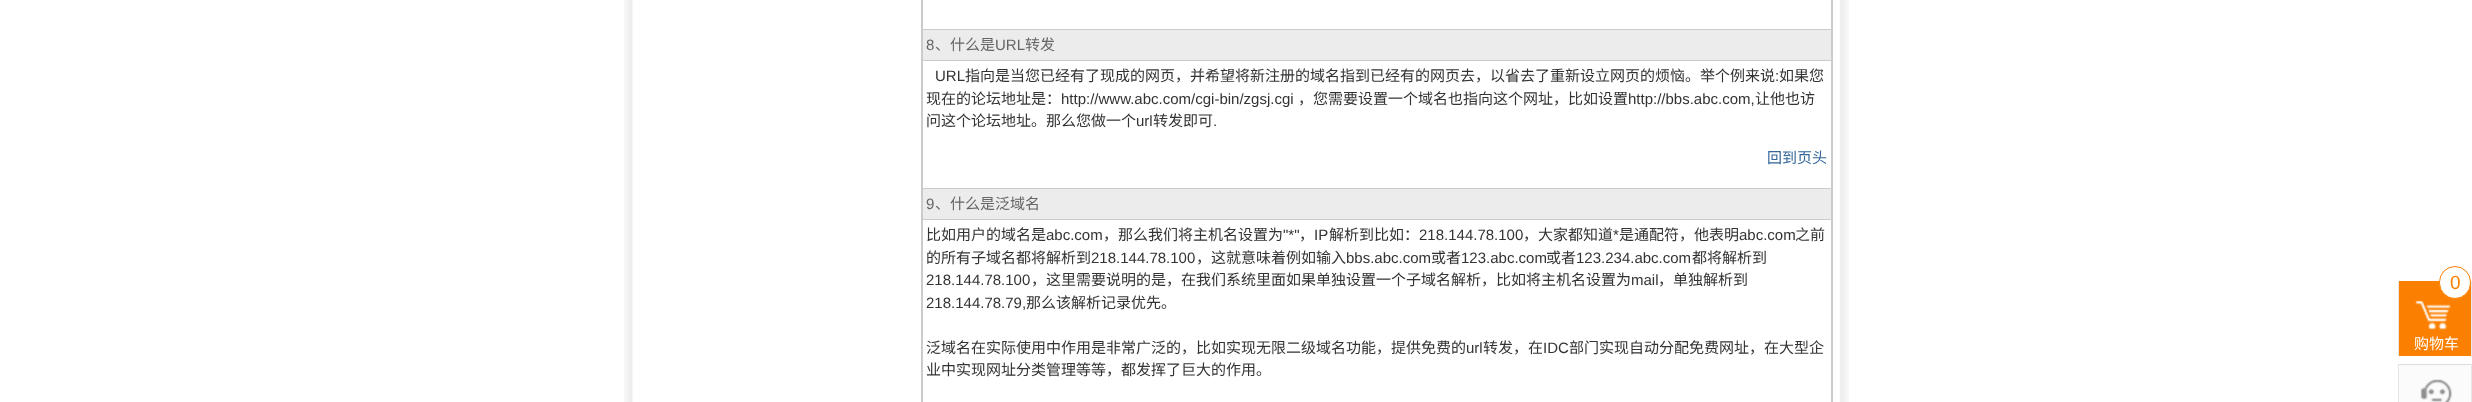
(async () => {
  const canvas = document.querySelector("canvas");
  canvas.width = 2472;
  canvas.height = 402;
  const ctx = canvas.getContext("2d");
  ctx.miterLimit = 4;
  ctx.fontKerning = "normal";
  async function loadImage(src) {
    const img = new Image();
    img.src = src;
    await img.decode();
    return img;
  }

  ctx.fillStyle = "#ffffff";
  ctx.fillRect(0, 0, 2472, 402);
  ctx.drawImage(await loadImage("img/1.png"), 624, 0, 1225, 402);
  for (const [x, y, w, h, color] of [
    [921, 0, 912, 402, "#cbcbcb"],
    [923, 0, 908, 29, "#ffffff"],
    [923, 30, 908, 30, "#edecec"],
    [923, 61, 908, 127, "#ffffff"],
    [923, 189, 908, 30, "#edecec"],
    [923, 220, 908, 182, "#ffffff"],
    [2399, 281, 72, 75, "#fb7f00"],
    [2471, 281, 1, 75, "#e7e7e7"],
    [2398, 281, 1, 75, "#e7e7e7"],
  ]) {
    ctx.fillStyle = color;
    ctx.fillRect(x, y, w, h);
  }
  ctx.fillStyle = "#ffffff";
  ctx.beginPath();
  ctx.roundRect(2439.5, 266.5, 31, 32, 15.5);
  ctx.fill();
  ctx.strokeStyle = "#fb7f00";
  ctx.stroke();
  ctx.drawImage(await loadImage("img/2.png"), 2415, 300, 36, 30);
  for (const [x, y, w, h, color] of [
    [2399, 365, 72, 37, "#fbfbfb"],
    [2398, 364, 74, 1, "#dcdcdc"],
    [2471, 364, 1, 38, "#e7e7e7"],
    [2398, 364, 1, 38, "#e7e7e7"],
  ]) {
    ctx.fillStyle = color;
    ctx.fillRect(x, y, w, h);
  }
  ctx.drawImage(await loadImage("img/3.png"), 2420, 379, 32, 23);
  ctx.font = "15px Liberation Sans";
  ctx.fillStyle = "#666666";
  ctx.fillText("8", 926, 50);
  ctx.font = "15px Noto Sans CJK SC";
  ctx.fillText("、什么是", 935, 50);
  ctx.font = "15px Liberation Sans";
  ctx.fillText("URL", 995, 50);
  ctx.font = "15px Noto Sans CJK SC";
  ctx.fillText("转发", 1025, 50);
  ctx.font = "15px Liberation Sans";
  ctx.fillStyle = "#333333";
  ctx.fillText("URL", 935, 81);
  ctx.font = "15px Noto Sans CJK SC";
  ctx.fillText("指向是当您已经有了现成的网页，并希望将新注册的域名指到已经有的网页去，以省去了重新设立网页的烦恼。举个例来说", 965, 81);
  ctx.font = "15px Liberation Sans";
  ctx.fillText(":", 1775, 81);
  ctx.font = "15px Noto Sans CJK SC";
  ctx.fillText("如果您", 1779, 81);
  ctx.fillText("现在的论坛地址是：", 926, 104);
  ctx.font = "15px Liberation Sans";
  ctx.fillText("http://www.abc.com/cgi-bin/zgsj.cgi", 1061, 104);
  ctx.font = "15px Noto Sans CJK SC";
  ctx.fillText("，您需要设置一个域名也指向这个网址，比如设置", 1298, 104);
  ctx.font = "15px Liberation Sans";
  ctx.fillText("http://bbs.abc.com,", 1628, 104);
  ctx.font = "15px Noto Sans CJK SC";
  ctx.fillText("让他也访", 1755, 104);
  ctx.fillText("问这个论坛地址。那么您做一个", 926, 126);
  ctx.font = "15px Liberation Sans";
  ctx.fillText("url", 1136, 126);
  ctx.font = "15px Noto Sans CJK SC";
  ctx.fillText("转发即可", 1153, 126);
  ctx.font = "15px Liberation Sans";
  ctx.fillText(".", 1213, 126);
  ctx.font = "15px Noto Sans CJK SC";
  ctx.fillStyle = "#336699";
  ctx.fillText("回到页头", 1767, 163);
  ctx.font = "15px Liberation Sans";
  ctx.fillStyle = "#666666";
  ctx.fillText("9", 926, 209);
  ctx.font = "15px Noto Sans CJK SC";
  ctx.fillText("、什么是泛域名", 935, 209);
  ctx.fillStyle = "#333333";
  ctx.fillText("比如用户的域名是", 926, 240);
  ctx.font = "15px Liberation Sans";
  ctx.fillText("abc.com", 1046, 240);
  ctx.font = "15px Noto Sans CJK SC";
  ctx.fillText("，那么我们将主机名设置为", 1103, 240);
  ctx.font = "15px Liberation Sans";
  ctx.fillText("\"*\"", 1283, 240);
  ctx.font = "15px Noto Sans CJK SC";
  ctx.fillText("，", 1299, 240);
  ctx.font = "15px Liberation Sans";
  ctx.fillText("IP", 1314, 240);
  ctx.font = "15px Noto Sans CJK SC";
  ctx.fillText("解析到比如：", 1329, 240);
  ctx.font = "15px Liberation Sans";
  ctx.fillText("218.144.78.100", 1419, 240);
  ctx.font = "15px Noto Sans CJK SC";
  ctx.fillText("，大家都知道", 1523, 240);
  ctx.font = "15px Liberation Sans";
  ctx.fillText("*", 1613, 240);
  ctx.font = "15px Noto Sans CJK SC";
  ctx.fillText("是通配符，他表明", 1619, 240);
  ctx.font = "15px Liberation Sans";
  ctx.fillText("abc.com", 1739, 240);
  ctx.font = "15px Noto Sans CJK SC";
  ctx.fillText("之前", 1795, 240);
  ctx.fillText("的所有子域名都将解析到", 926, 263);
  ctx.font = "15px Liberation Sans";
  ctx.fillText("218.144.78.100", 1091, 263);
  ctx.font = "15px Noto Sans CJK SC";
  ctx.fillText("，这就意味着例如输入", 1196, 263);
  ctx.font = "15px Liberation Sans";
  ctx.fillText("bbs.abc.com", 1346, 263);
  ctx.font = "15px Noto Sans CJK SC";
  ctx.fillText("或者", 1431, 263);
  ctx.font = "15px Liberation Sans";
  ctx.fillText("123.abc.com", 1461, 263);
  ctx.font = "15px Noto Sans CJK SC";
  ctx.fillText("或者", 1546, 263);
  ctx.font = "15px Liberation Sans";
  ctx.fillText("123.234.abc.com", 1576, 263);
  ctx.font = "15px Noto Sans CJK SC";
  ctx.fillText("都将解析到", 1692, 263);
  ctx.font = "15px Liberation Sans";
  ctx.fillText("218.144.78.100", 926, 285);
  ctx.font = "15px Noto Sans CJK SC";
  ctx.fillText("，这里需要说明的是，在我们系统里面如果单独设置一个子域名解析，比如将主机名设置为", 1031, 285);
  ctx.font = "15px Liberation Sans";
  ctx.fillText("mail", 1631, 285);
  ctx.font = "15px Noto Sans CJK SC";
  ctx.fillText("，单独解析到", 1658, 285);
  ctx.font = "15px Liberation Sans";
  ctx.fillText("218.144.78.79,", 926, 308);
  ctx.font = "15px Noto Sans CJK SC";
  ctx.fillText("那么该解析记录优先。", 1026, 308);
  ctx.fillText("泛域名在实际使用中作用是非常广泛的，比如实现无限二级域名功能，提供免费的", 926, 353);
  ctx.font = "15px Liberation Sans";
  ctx.fillText("url", 1466, 353);
  ctx.font = "15px Noto Sans CJK SC";
  ctx.fillText("转发，在", 1483, 353);
  ctx.font = "15px Liberation Sans";
  ctx.fillText("IDC", 1543, 353);
  ctx.font = "15px Noto Sans CJK SC";
  ctx.fillText("部门实现自动分配免费网址，在大型企", 1569, 353);
  ctx.fillText("业中实现网址分类管理等等，都发挥了巨大的作用。", 926, 375);
  ctx.font = "19px Liberation Sans";
  ctx.fillStyle = "#fb7f00";
  ctx.fillText("0", 2450, 289);
  ctx.font = "15px Noto Sans CJK SC";
  ctx.fillStyle = "#ffffff";
  ctx.fillText("购物车", 2414, 349);
})();
